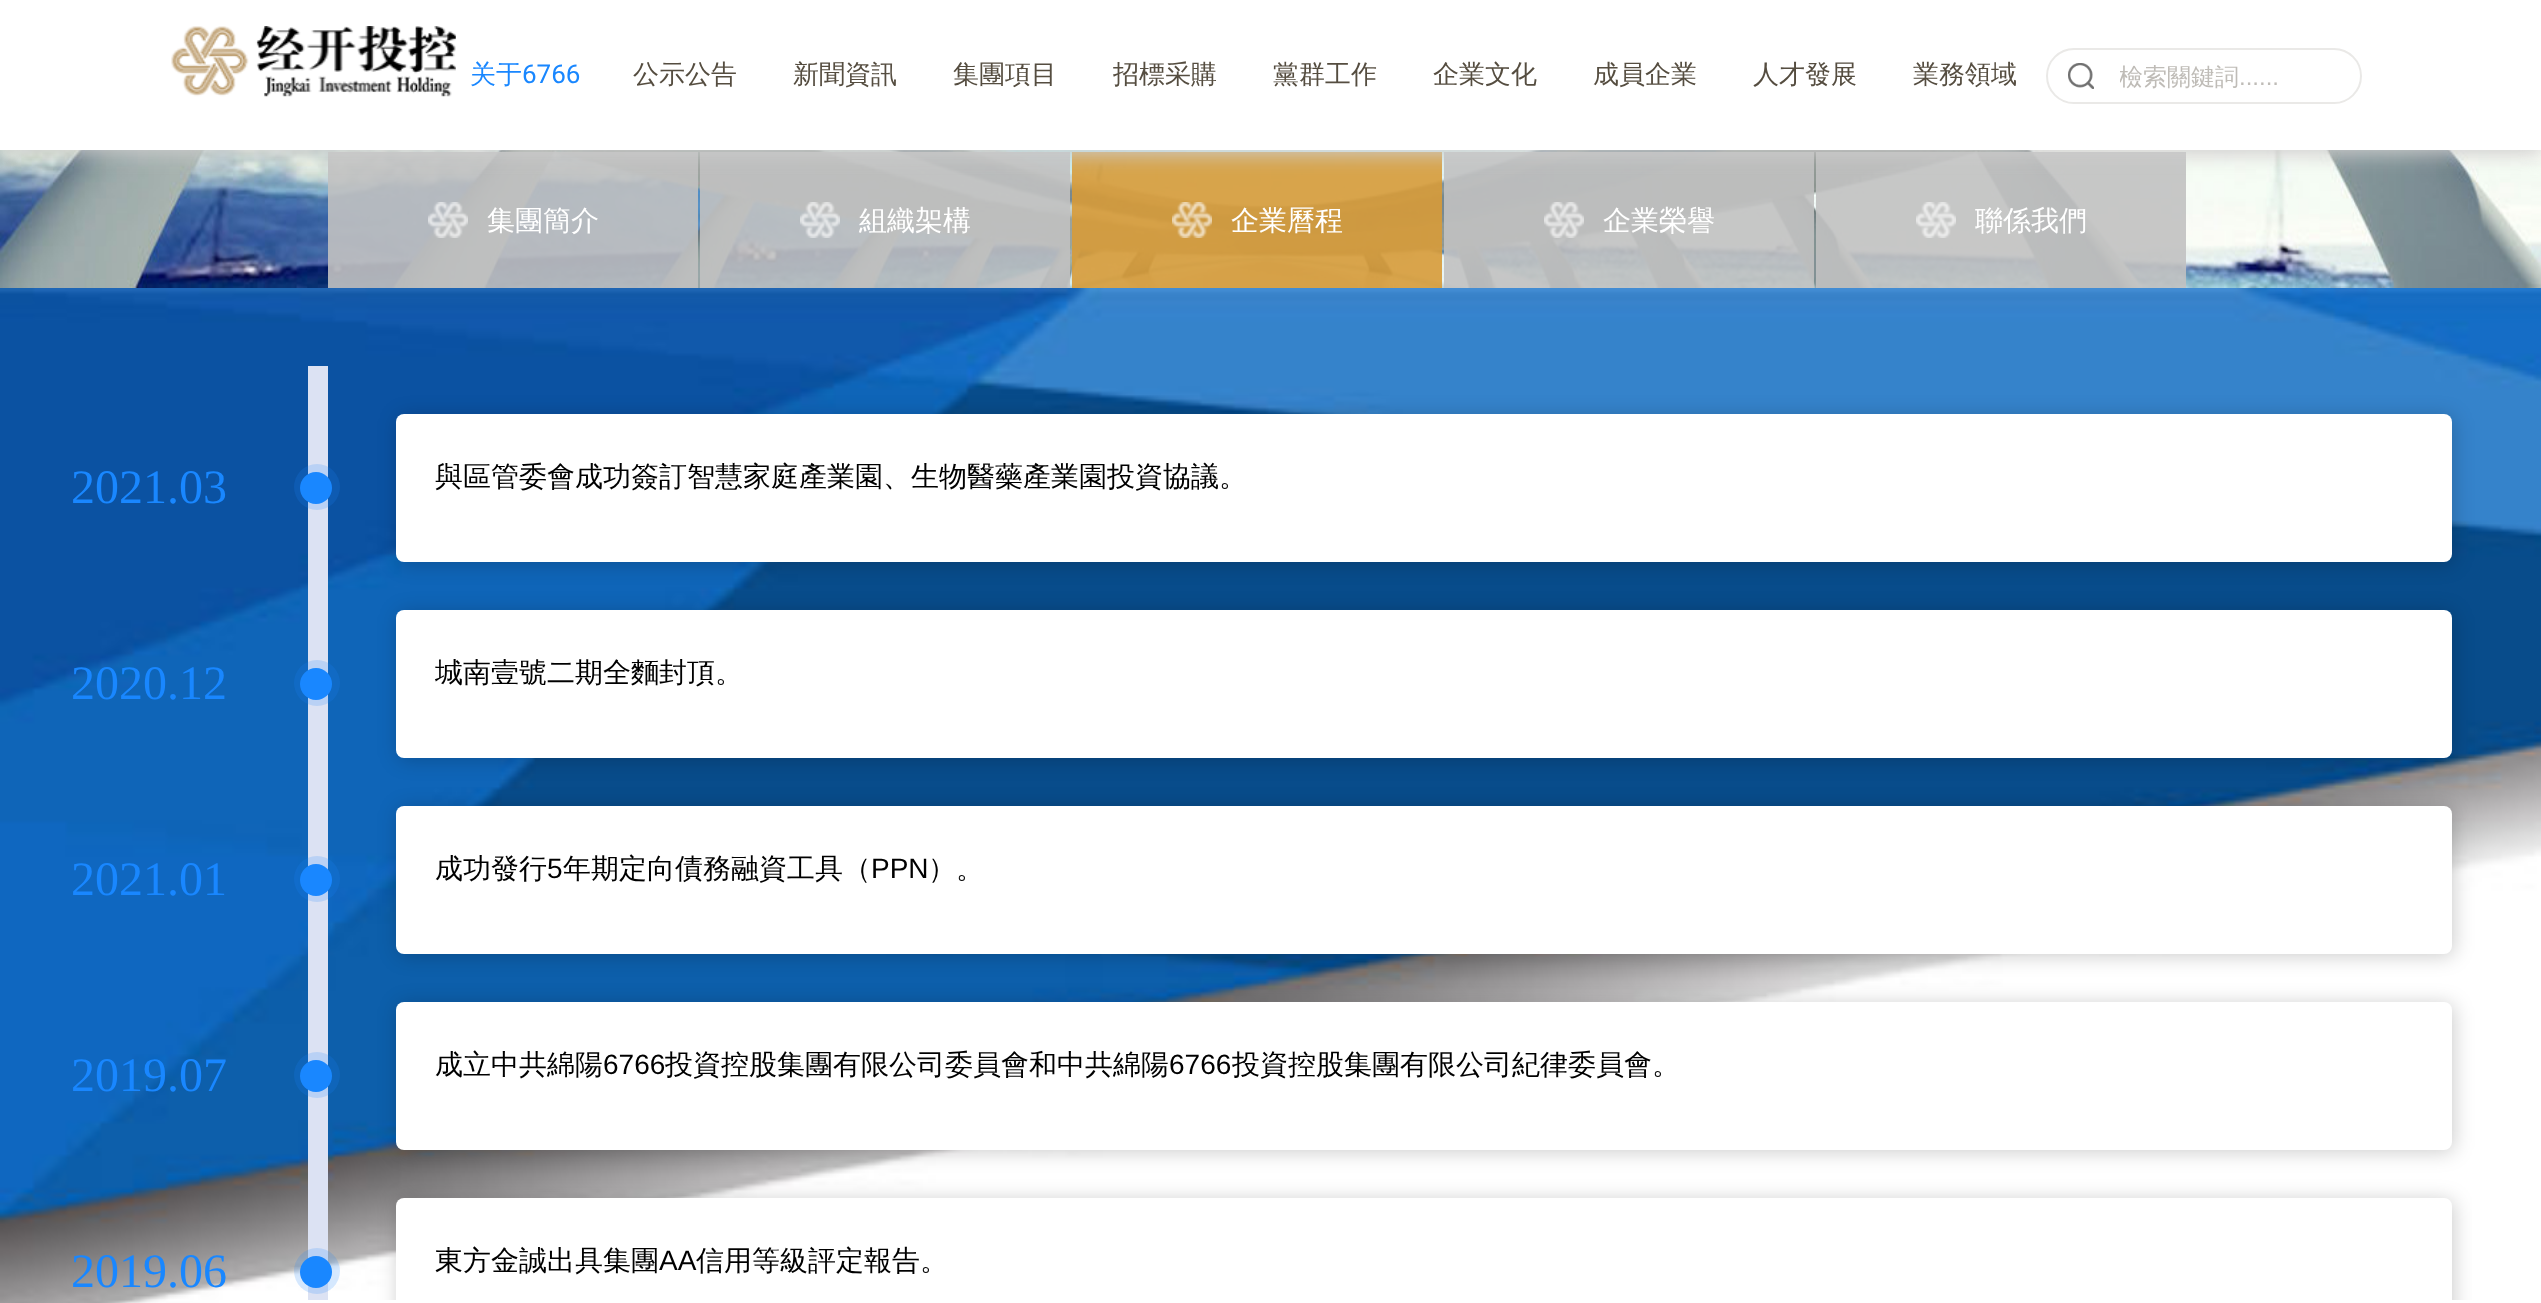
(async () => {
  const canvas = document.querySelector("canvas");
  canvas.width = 2541;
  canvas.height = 1303;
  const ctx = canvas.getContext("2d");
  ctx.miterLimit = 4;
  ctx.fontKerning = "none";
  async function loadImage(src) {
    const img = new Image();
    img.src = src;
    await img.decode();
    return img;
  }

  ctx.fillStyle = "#ffffff";
  ctx.fillRect(0, 0, 2541, 1303);
  ctx.drawImage(await loadImage("img/3.png"), 0, 150, 2541, 138);
  for (const [x, y, w, h, color] of [
    [328, 152, 370, 136, "rgba(193, 193, 193, 0.9)"],
    [700, 152, 370, 136, "rgba(193, 193, 193, 0.9)"],
    [1072, 152, 370, 136, "rgba(215, 155, 56, 0.9)"],
    [1444, 152, 370, 136, "rgba(193, 193, 193, 0.9)"],
    [1816, 152, 370, 136, "rgba(193, 193, 193, 0.9)"],
  ]) {
    ctx.fillStyle = color;
    ctx.fillRect(x, y, w, h);
  }
  ctx.fillStyle = "#cccccc";
  ctx.filter = "blur(10px)";
  ctx.beginPath();
  ctx.rect(0, 4, 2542, 150);
  ctx.fill();
  ctx.filter = "none";
  ctx.fillStyle = "#ffffff";
  ctx.fillRect(0, 0, 2541, 150);
  ctx.drawImage(await loadImage("img/1.png"), 171, 26, 285, 71);
  ctx.beginPath();
  ctx.roundRect(2047, 49, 314, 54, 27);
  ctx.strokeStyle = "#eae9e7";
  ctx.lineWidth = 2;
  ctx.stroke();
  ctx.drawImage(await loadImage("img/2.png"), 2068, 63, 26, 26);
  ctx.drawImage(await loadImage("img/4.png"), 428, 202, 40, 36);
  ctx.drawImage(await loadImage("img/5.png"), 800, 202, 40, 36);
  ctx.drawImage(await loadImage("img/6.png"), 1172, 202, 40, 36);
  ctx.drawImage(await loadImage("img/7.png"), 1544, 202, 40, 36);
  ctx.drawImage(await loadImage("img/8.png"), 1916, 202, 40, 36);
  ctx.drawImage(await loadImage("img/9.png"), 0, 288, 2541, 1015);
  ctx.fillStyle = "#dce2f3";
  ctx.fillRect(308, 366, 20, 934);
  ctx.fillStyle = "rgba(25, 135, 255, 0.18)";
  ctx.beginPath();
  ctx.arc(317, 487, 23, 0, Math.PI * 2);
  ctx.fill();
  ctx.fillStyle = "#1987ff";
  ctx.beginPath();
  ctx.arc(316, 488, 16, 0, Math.PI * 2);
  ctx.fill();
  ctx.fillStyle = "rgba(0, 0, 0, 0.2)";
  ctx.filter = "blur(10px)";
  ctx.beginPath();
  ctx.roundRect(398, 416, 2056, 148, 8);
  ctx.fill();
  ctx.filter = "none";
  ctx.fillStyle = "#ffffff";
  ctx.beginPath();
  ctx.roundRect(396, 414, 2056, 148, 8);
  ctx.fill();
  ctx.fillStyle = "rgba(25, 135, 255, 0.18)";
  ctx.beginPath();
  ctx.arc(317, 683, 23, 0, Math.PI * 2);
  ctx.fill();
  ctx.fillStyle = "#1987ff";
  ctx.beginPath();
  ctx.arc(316, 684, 16, 0, Math.PI * 2);
  ctx.fill();
  ctx.fillStyle = "rgba(0, 0, 0, 0.2)";
  ctx.filter = "blur(10px)";
  ctx.beginPath();
  ctx.roundRect(398, 612, 2056, 148, 8);
  ctx.fill();
  ctx.filter = "none";
  ctx.fillStyle = "#ffffff";
  ctx.beginPath();
  ctx.roundRect(396, 610, 2056, 148, 8);
  ctx.fill();
  ctx.fillStyle = "rgba(25, 135, 255, 0.18)";
  ctx.beginPath();
  ctx.arc(317, 879, 23, 0, Math.PI * 2);
  ctx.fill();
  ctx.fillStyle = "#1987ff";
  ctx.beginPath();
  ctx.arc(316, 880, 16, 0, Math.PI * 2);
  ctx.fill();
  ctx.fillStyle = "rgba(0, 0, 0, 0.2)";
  ctx.filter = "blur(10px)";
  ctx.beginPath();
  ctx.roundRect(398, 808, 2056, 148, 8);
  ctx.fill();
  ctx.filter = "none";
  ctx.fillStyle = "#ffffff";
  ctx.beginPath();
  ctx.roundRect(396, 806, 2056, 148, 8);
  ctx.fill();
  ctx.fillStyle = "rgba(25, 135, 255, 0.18)";
  ctx.beginPath();
  ctx.arc(317, 1075, 23, 0, Math.PI * 2);
  ctx.fill();
  ctx.fillStyle = "#1987ff";
  ctx.beginPath();
  ctx.arc(316, 1076, 16, 0, Math.PI * 2);
  ctx.fill();
  ctx.fillStyle = "rgba(0, 0, 0, 0.2)";
  ctx.filter = "blur(10px)";
  ctx.beginPath();
  ctx.roundRect(398, 1004, 2056, 148, 8);
  ctx.fill();
  ctx.filter = "none";
  ctx.fillStyle = "#ffffff";
  ctx.beginPath();
  ctx.roundRect(396, 1002, 2056, 148, 8);
  ctx.fill();
  ctx.fillStyle = "rgba(25, 135, 255, 0.18)";
  ctx.beginPath();
  ctx.arc(317, 1271, 23, 0, Math.PI * 2);
  ctx.fill();
  ctx.fillStyle = "#1987ff";
  ctx.beginPath();
  ctx.arc(316, 1272, 16, 0, Math.PI * 2);
  ctx.fill();
  ctx.save();
  ctx.beginPath();
  ctx.rect(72, 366, 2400, 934);
  ctx.clip();
  ctx.fillStyle = "rgba(0, 0, 0, 0.2)";
  ctx.filter = "blur(10px)";
  ctx.beginPath();
  ctx.roundRect(398, 1200, 2056, 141, 8);
  ctx.fill();
  ctx.filter = "none";
  ctx.restore();
  ctx.fillStyle = "#ffffff";
  ctx.beginPath();
  ctx.roundRect(396, 1198, 2056, 102, [8, 8, 0, 0]);
  ctx.fill();
  ctx.font = "500 26px WenQuanYi Zen Hei";
  ctx.fillStyle = "#1987ff";
  ctx.fillText("关于", 470, 83);
  ctx.font = "26px Roboto";
  ctx.fillText("6766", 522, 83);
  ctx.font = "500 26px WenQuanYi Zen Hei";
  ctx.fillStyle = "#554d40";
  for (const [text, x, y] of [
    ["公示公告", 633, 83],
    ["新聞資訊", 793, 83],
    ["集團項目", 953, 83],
    ["招標采購", 1113, 83],
    ["黨群工作", 1273, 83],
    ["企業文化", 1433, 83],
    ["成員企業", 1593, 83],
    ["人才發展", 1753, 83],
    ["業務領域", 1913, 83],
  ]) {
    ctx.fillText(text, x, y);
  }
  ctx.save();
  ctx.beginPath();
  ctx.rect(2120, 62, 220, 34);
  ctx.clip();
  ctx.font = "500 24px WenQuanYi Zen Hei";
  ctx.fillStyle = "#bfbcb7";
  ctx.fillText("檢索關鍵詞", 2119, 85);
  ctx.restore();
  ctx.font = "24px Liberation Sans";
  ctx.fillStyle = "#bfbcb7";
  ctx.fillText("......", 2239, 85);
  ctx.font = "500 28px WenQuanYi Zen Hei";
  ctx.fillStyle = "#ffffff";
  for (const [text, x, y] of [
    ["集團簡介", 487, 230],
    ["組織架構", 859, 230],
    ["企業曆程", 1231, 230],
    ["企業榮譽", 1603, 230],
    ["聯係我們", 1975, 230],
  ]) {
    ctx.fillText(text, x, y);
  }
  ctx.font = "48px Liberation Serif";
  ctx.fillStyle = "#1987ff";
  ctx.fillText("2021.03", 71, 503);
  ctx.font = "500 28px WenQuanYi Zen Hei";
  ctx.fillStyle = "#000000";
  ctx.fillText("與區管委會成功簽訂智慧家庭產業園、生物醫藥產業園投資協議。", 435, 486);
  ctx.font = "48px Liberation Serif";
  ctx.fillStyle = "#1987ff";
  ctx.fillText("2020.12", 71, 699);
  ctx.font = "500 28px WenQuanYi Zen Hei";
  ctx.fillStyle = "#000000";
  ctx.fillText("城南壹號二期全麵封頂。", 435, 682);
  ctx.font = "48px Liberation Serif";
  ctx.fillStyle = "#1987ff";
  ctx.fillText("2021.01", 71, 895);
  ctx.font = "500 28px WenQuanYi Zen Hei";
  ctx.fillStyle = "#000000";
  ctx.fillText("成功發行", 435, 878);
  ctx.font = "28px Liberation Sans";
  ctx.fillText("5", 547, 878);
  ctx.font = "500 28px WenQuanYi Zen Hei";
  ctx.fillText("年期定向債務融資工具（", 563, 878);
  ctx.font = "28px Liberation Sans";
  ctx.fillText("PPN", 871, 878);
  ctx.font = "500 28px WenQuanYi Zen Hei";
  ctx.fillText("）。", 928, 878);
  ctx.font = "48px Liberation Serif";
  ctx.fillStyle = "#1987ff";
  ctx.fillText("2019.07", 71, 1091);
  ctx.font = "500 28px WenQuanYi Zen Hei";
  ctx.fillStyle = "#000000";
  ctx.fillText("成立中共綿陽", 435, 1074);
  ctx.font = "28px Liberation Sans";
  ctx.fillText("6766", 603, 1074);
  ctx.font = "500 28px WenQuanYi Zen Hei";
  ctx.fillText("投資控股集團有限公司委員會和中共綿陽", 665, 1074);
  ctx.font = "28px Liberation Sans";
  ctx.fillText("6766", 1169, 1074);
  ctx.font = "500 28px WenQuanYi Zen Hei";
  ctx.fillText("投資控股集團有限公司紀律委員會。", 1232, 1074);
  ctx.font = "48px Liberation Serif";
  ctx.fillStyle = "#1987ff";
  ctx.fillText("2019.06", 71, 1287);
  ctx.font = "500 28px WenQuanYi Zen Hei";
  ctx.fillStyle = "#000000";
  ctx.fillText("東方金誠出具集團", 435, 1270);
  ctx.font = "28px Liberation Sans";
  ctx.fillText("AA", 659, 1270);
  ctx.font = "500 28px WenQuanYi Zen Hei";
  ctx.fillText("信用等級評定報告。", 696, 1270);
})();
